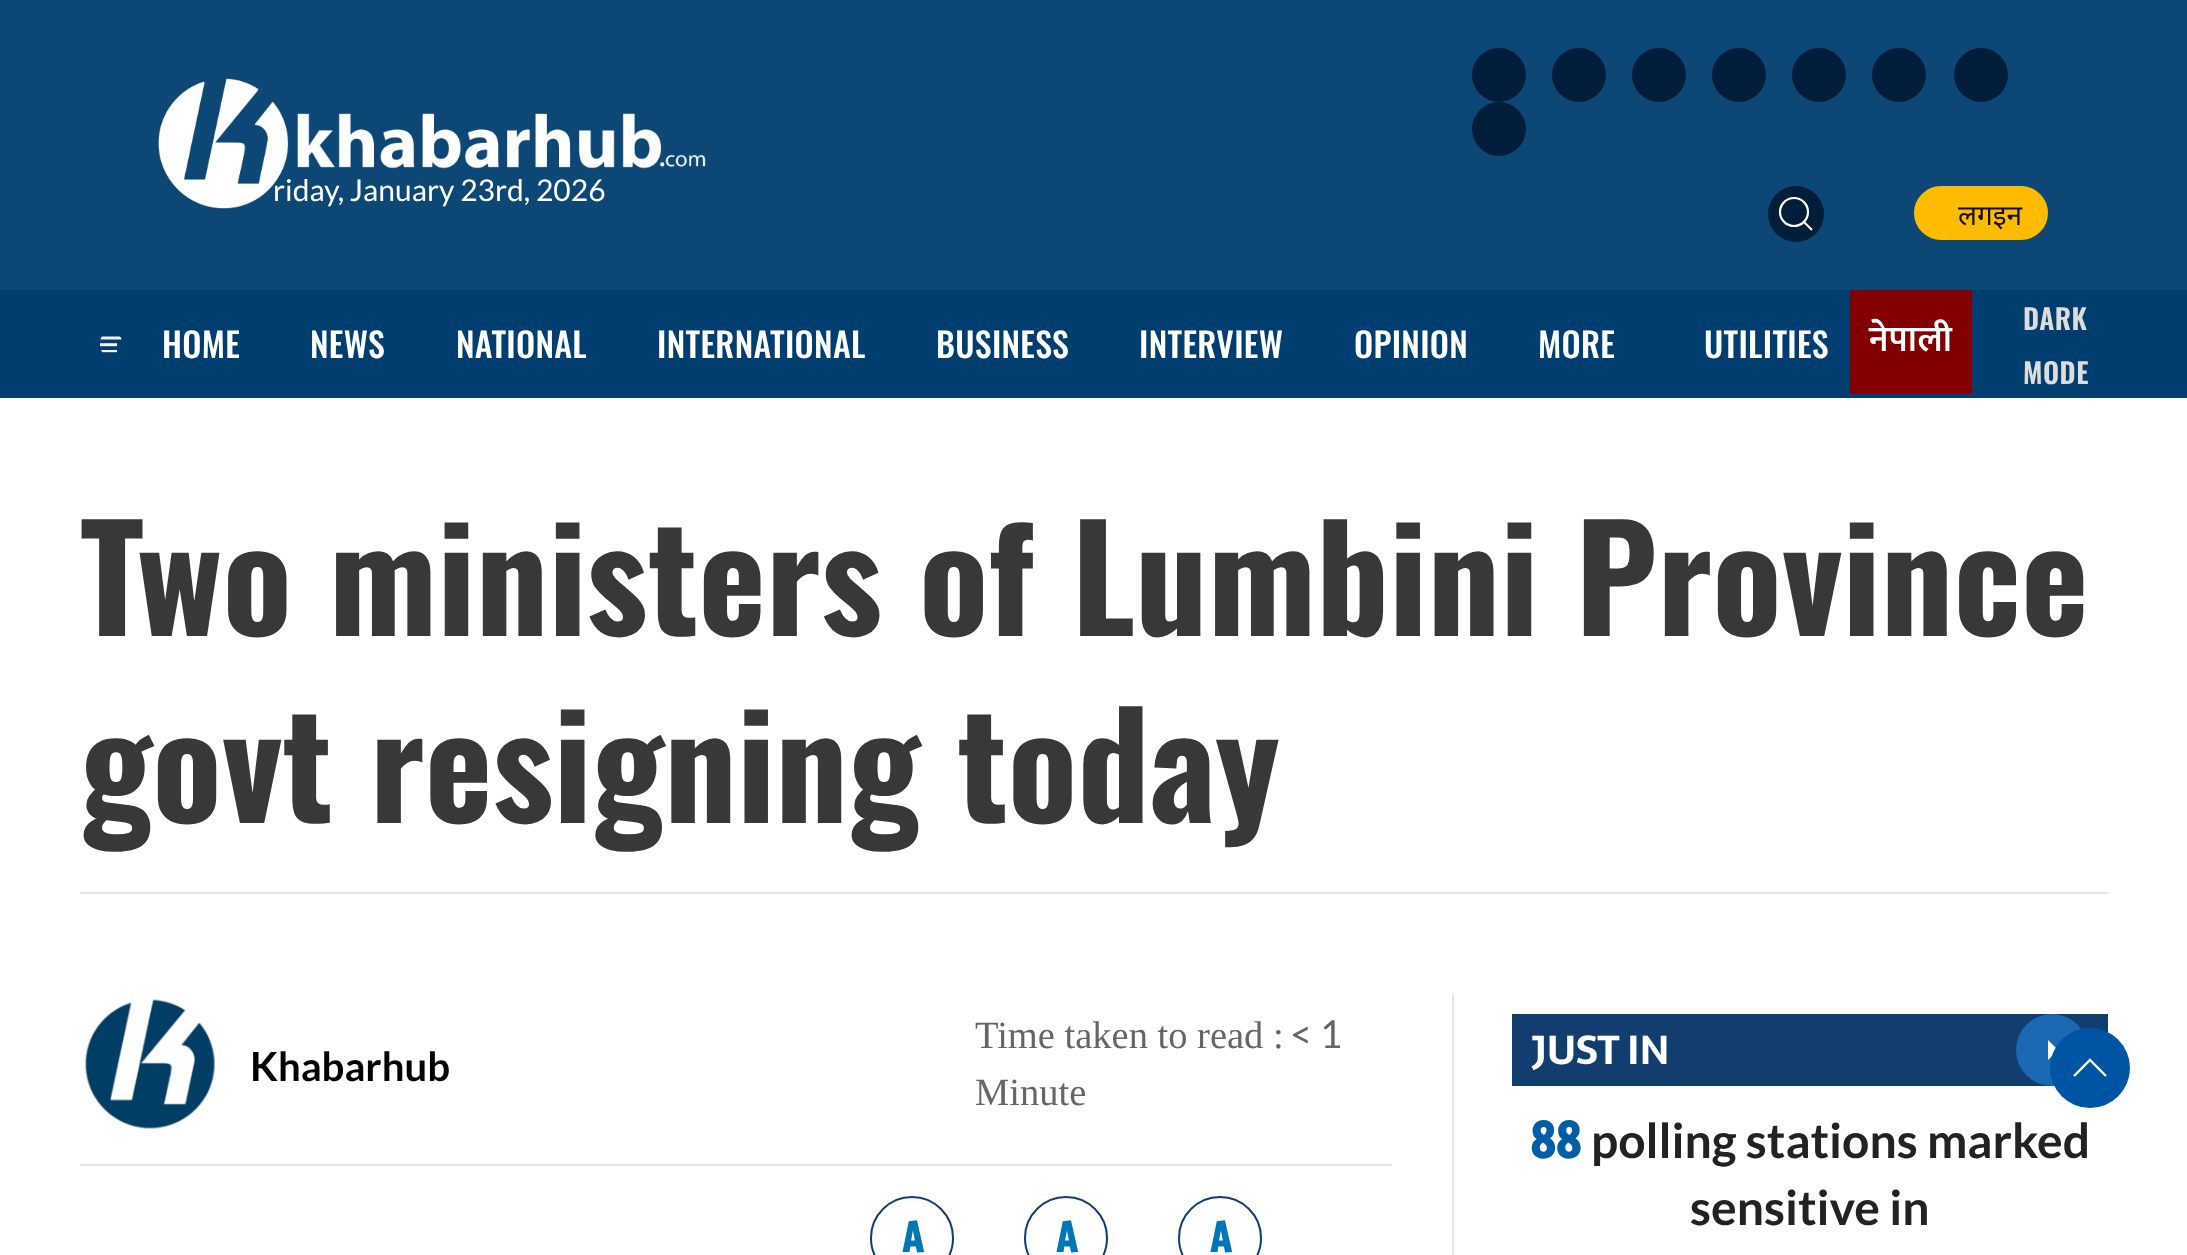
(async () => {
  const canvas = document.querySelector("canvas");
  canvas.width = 2187;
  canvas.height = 1255;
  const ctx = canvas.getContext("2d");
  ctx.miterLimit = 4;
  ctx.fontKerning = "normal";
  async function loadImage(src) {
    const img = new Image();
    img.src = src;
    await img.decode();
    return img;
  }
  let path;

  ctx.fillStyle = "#ffffff";
  ctx.fillRect(0, 0, 2187, 1255);
  ctx.fillStyle = "#0d4776";
  ctx.fillRect(0, 0, 2187, 290);
  ctx.drawImage(await loadImage("img/1.png"), 158, 78, 548, 131);
  ctx.fillStyle = "#001d3a";
  ctx.beginPath();
  ctx.arc(1499, 75, 27, 0, Math.PI * 2);
  ctx.fill();
  ctx.beginPath();
  ctx.arc(1579, 75, 27, 0, Math.PI * 2);
  ctx.fill();
  ctx.beginPath();
  ctx.arc(1659, 75, 27, 0, Math.PI * 2);
  ctx.fill();
  ctx.beginPath();
  ctx.arc(1739, 75, 27, 0, Math.PI * 2);
  ctx.fill();
  ctx.beginPath();
  ctx.arc(1819, 75, 27, 0, Math.PI * 2);
  ctx.fill();
  ctx.beginPath();
  ctx.arc(1899, 75, 27, 0, Math.PI * 2);
  ctx.fill();
  ctx.beginPath();
  ctx.arc(1981, 75, 27, 0, Math.PI * 2);
  ctx.fill();
  ctx.beginPath();
  ctx.arc(1499, 129, 27, 0, Math.PI * 2);
  ctx.fill();
  ctx.beginPath();
  ctx.arc(1796, 214, 28, 0, Math.PI * 2);
  ctx.fill();
  ctx.beginPath();
  ctx.arc(1794, 212, 14, 0, Math.PI * 2);
  ctx.strokeStyle = "#ffffff";
  ctx.lineWidth = 2.2;
  ctx.stroke();
  path = new Path2D("M1804 222L1812 230Z");
  ctx.stroke(path);
  ctx.fillStyle = "#ffbb00";
  ctx.beginPath();
  ctx.roundRect(1916, 188, 130, 50, 25);
  ctx.fill();
  ctx.strokeStyle = "#ffbb00";
  ctx.lineWidth = 4;
  ctx.stroke();
  ctx.fillStyle = "#003e6f";
  ctx.fillRect(0, 290, 2187, 108);
  ctx.drawImage(await loadImage("img/2.png"), 100, 336, 22, 17);
  ctx.fillStyle = "#820000";
  ctx.fillRect(1850, 290, 122, 104);
  ctx.fillStyle = "#e5e5e5";
  ctx.fillRect(80, 892, 2028, 2);
  ctx.drawImage(await loadImage("img/3.png"), 84, 999, 132, 130);
  ctx.fillRect(80, 1164, 1312, 2);
  ctx.beginPath();
  ctx.arc(912, 1238, 41, 0, Math.PI * 2);
  ctx.strokeStyle = "#113e6f";
  ctx.lineWidth = 2;
  ctx.stroke();
  ctx.beginPath();
  ctx.arc(1066, 1238, 41, 0, Math.PI * 2);
  ctx.stroke();
  ctx.beginPath();
  ctx.arc(1220, 1238, 41, 0, Math.PI * 2);
  ctx.stroke();
  ctx.fillRect(1452, 994, 2, 261);
  ctx.fillStyle = "#113e6f";
  ctx.fillRect(1512, 1014, 596, 72);
  ctx.fillStyle = "#1b68b3";
  ctx.beginPath();
  ctx.arc(2052, 1050, 36, 0, Math.PI * 2);
  ctx.fill();
  ctx.fillStyle = "#ffffff";
  path = new Path2D("M2048 1040L2058 1050L2048 1060Z");
  ctx.fill(path);
  ctx.fillStyle = "#0054a4";
  ctx.beginPath();
  ctx.arc(2090, 1068, 40, 0, Math.PI * 2);
  ctx.fill();
  path = new Path2D("M2074 1076L2090 1060L2106 1076");
  ctx.strokeStyle = "#ffffff";
  ctx.lineWidth = 2.4;
  ctx.stroke(path);
  ctx.font = "30px Lato";
  ctx.fillStyle = "#ffffff";
  ctx.fillText("riday, January 23rd, 2026", 273, 201);
  ctx.font = "28px Noto Sans";
  ctx.fillStyle = "#111111";
  ctx.fillText("लगइन", 1958, 225);
  ctx.letterSpacing = "0.3px";
  ctx.font = "500 34px Oswald";
  ctx.fillStyle = "#ffffff";
  for (const [text, x, y] of [
    ["HOME", 162, 358],
    ["NEWS", 310, 358],
    ["NATIONAL", 456, 358],
    ["INTERNATIONAL", 657, 358],
    ["BUSINESS", 936, 358],
    ["INTERVIEW", 1139, 358],
    ["OPINION", 1354, 358],
    ["MORE", 1538, 358],
    ["UTILITIES", 1704, 358],
  ]) {
    ctx.fillText(text, x, y);
  }
  ctx.letterSpacing = "0.5px";
  ctx.font = "600 36px Mukta";
  ctx.fillText("नेपाली", 1869, 351);
  ctx.font = "600 28px Oswald";
  ctx.fillStyle = "#dddddd";
  ctx.fillText("DARK", 2023, 330);
  ctx.fillText("MODE", 2023, 384);
  ctx.letterSpacing = "0px";
  ctx.font = "bold 144px Oswald";
  ctx.fillStyle = "#383838";
  ctx.fillText("Two ministers of Lumbini Province", 80, 636);
  ctx.fillText("govt resigning today", 80, 823);
  ctx.font = "bold 40px Lato";
  ctx.fillStyle = "#000000";
  ctx.fillText("Khabarhub", 250, 1081);
  ctx.font = "38.5px Liberation Serif";
  ctx.fillStyle = "#656565";
  ctx.fillText("Time taken to read :", 975, 1048);
  ctx.font = "38.5px Lato";
  ctx.fillText("< 1", 1290, 1048);
  ctx.font = "38.5px Liberation Serif";
  ctx.fillText("Minute", 975, 1105);
  ctx.font = "bold 40px Freeman";
  ctx.fillStyle = "#0077b5";
  for (const [text, x, y] of [
    ["A", 902, 1252],
    ["A", 1056, 1252],
    ["A", 1210, 1252],
  ]) {
    ctx.fillText(text, x, y);
  }
  ctx.font = "bold 40px Sarala";
  ctx.fillStyle = "#ffffff";
  ctx.fillText("JUST IN", 1532, 1064);
  ctx.font = "bold 48px Freeman";
  ctx.fillStyle = "#005ea9";
  ctx.fillText("88", 1530, 1158);
  ctx.font = "bold 48px Lato";
  ctx.fillStyle = "#222222";
  ctx.fillText("polling stations marked", 1591, 1158);
  ctx.fillText("sensitive in", 1690, 1225);
})();
